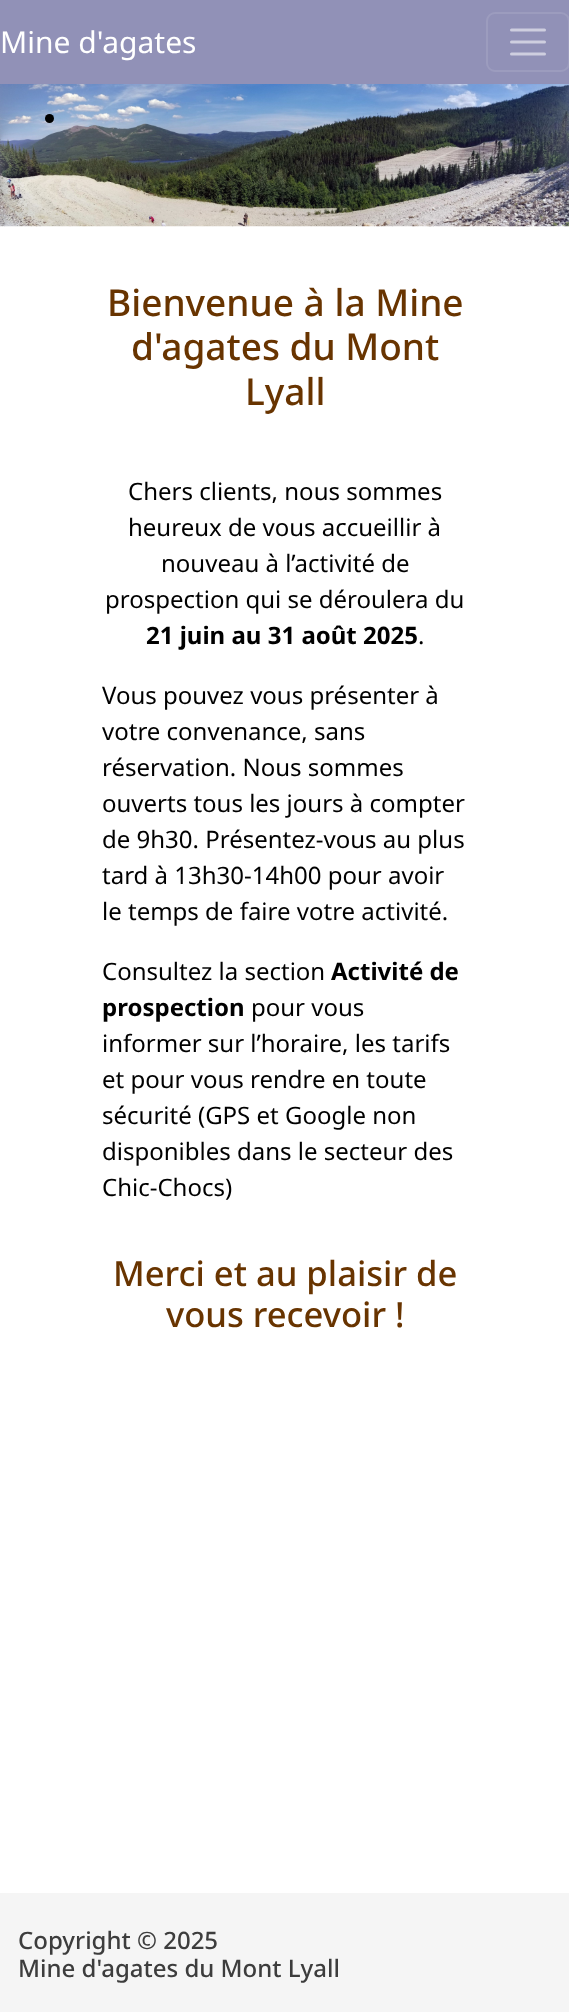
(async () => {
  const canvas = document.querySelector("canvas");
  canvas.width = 569;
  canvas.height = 2012;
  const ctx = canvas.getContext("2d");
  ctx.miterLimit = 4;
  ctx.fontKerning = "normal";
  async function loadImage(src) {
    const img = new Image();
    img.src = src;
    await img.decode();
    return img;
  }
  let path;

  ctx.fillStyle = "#ffffff";
  ctx.fillRect(0, 0, 569, 2012);
  ctx.fillStyle = "#9191b7";
  ctx.fillRect(0, 0, 569, 84);
  ctx.beginPath();
  ctx.roundRect(487, 13, 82, 58, 8);
  ctx.strokeStyle = "#9c9cbe";
  ctx.lineWidth = 2;
  ctx.stroke();
  path = new Path2D("M511.5 30H544.5M511.5 42H544.5M511.5 54H544.5");
  ctx.strokeStyle = "#cecedf";
  ctx.lineWidth = 3;
  ctx.lineCap = "round";
  ctx.stroke(path);
  ctx.drawImage(await loadImage("img/1.png"), 0, 84, 569, 143);
  ctx.fillStyle = "#000000";
  ctx.beginPath();
  ctx.arc(49.5, 118.5, 4.5, 0, Math.PI * 2);
  ctx.fill();
  ctx.fillStyle = "#f5f5f5";
  ctx.fillRect(0, 1893, 569, 119);
  ctx.font = "30px Noto Sans";
  ctx.fillStyle = "#ffffff";
  ctx.fillText("Mine d'agates", 0, 53);
  ctx.font = "500 37px Noto Sans";
  ctx.fillStyle = "#683400";
  for (const [text, x, y] of [
    ["Bienvenue à la Mine", 107, 316],
    ["d'agates du Mont", 131, 360],
    ["Lyall", 245, 405],
  ]) {
    ctx.fillText(text, x, y);
  }
  ctx.font = "24px Noto Sans";
  ctx.fillStyle = "#000000";
  for (const [text, x, y] of [
    ["Chers clients, nous sommes", 128, 500],
    ["heureux de vous accueillir à", 128, 536],
    ["nouveau à l’activité de", 161, 572],
    ["prospection qui se déroulera du", 105, 608],
  ]) {
    ctx.fillText(text, x, y);
  }
  ctx.font = "bold 24px Noto Sans";
  ctx.fillText("21 juin au 31 août 2025", 146, 644);
  ctx.font = "24px Noto Sans";
  for (const [text, x, y] of [
    [".", 418, 644],
    ["Vous pouvez vous présenter à", 102, 704],
    ["votre convenance, sans", 102, 740],
    ["réservation. Nous sommes", 102, 776],
    ["ouverts tous les jours à compter", 102, 812],
    ["de 9h30. Présentez-vous au plus", 102, 848],
    ["tard à 13h30-14h00 pour avoir", 102, 884],
    ["le temps de faire votre activité.", 102, 920],
    ["Consultez la section", 102, 980],
  ]) {
    ctx.fillText(text, x, y);
  }
  ctx.font = "bold 24px Noto Sans";
  ctx.fillText("Activité de", 331, 980);
  ctx.fillText("prospection", 102, 1016);
  ctx.font = "24px Noto Sans";
  for (const [text, x, y] of [
    ["pour vous", 251, 1016],
    ["informer sur l’horaire, les tarifs", 102, 1052],
    ["et pour vous rendre en toute", 102, 1088],
    ["sécurité (GPS et Google non", 102, 1124],
    ["disponibles dans le secteur des", 102, 1160],
    ["Chic-Chocs)", 102, 1196],
  ]) {
    ctx.fillText(text, x, y);
  }
  ctx.font = "500 34.6px Noto Sans";
  ctx.fillStyle = "#683400";
  ctx.fillText("Merci et au plaisir de", 113, 1286);
  ctx.fillText("vous recevoir !", 166, 1327);
  ctx.font = "500 24px Noto Sans";
  ctx.fillStyle = "#3d3d3d";
  ctx.fillText("Copyright © 2025", 18, 1949);
  ctx.fillText("Mine d'agates du Mont Lyall", 18, 1977);
})();
